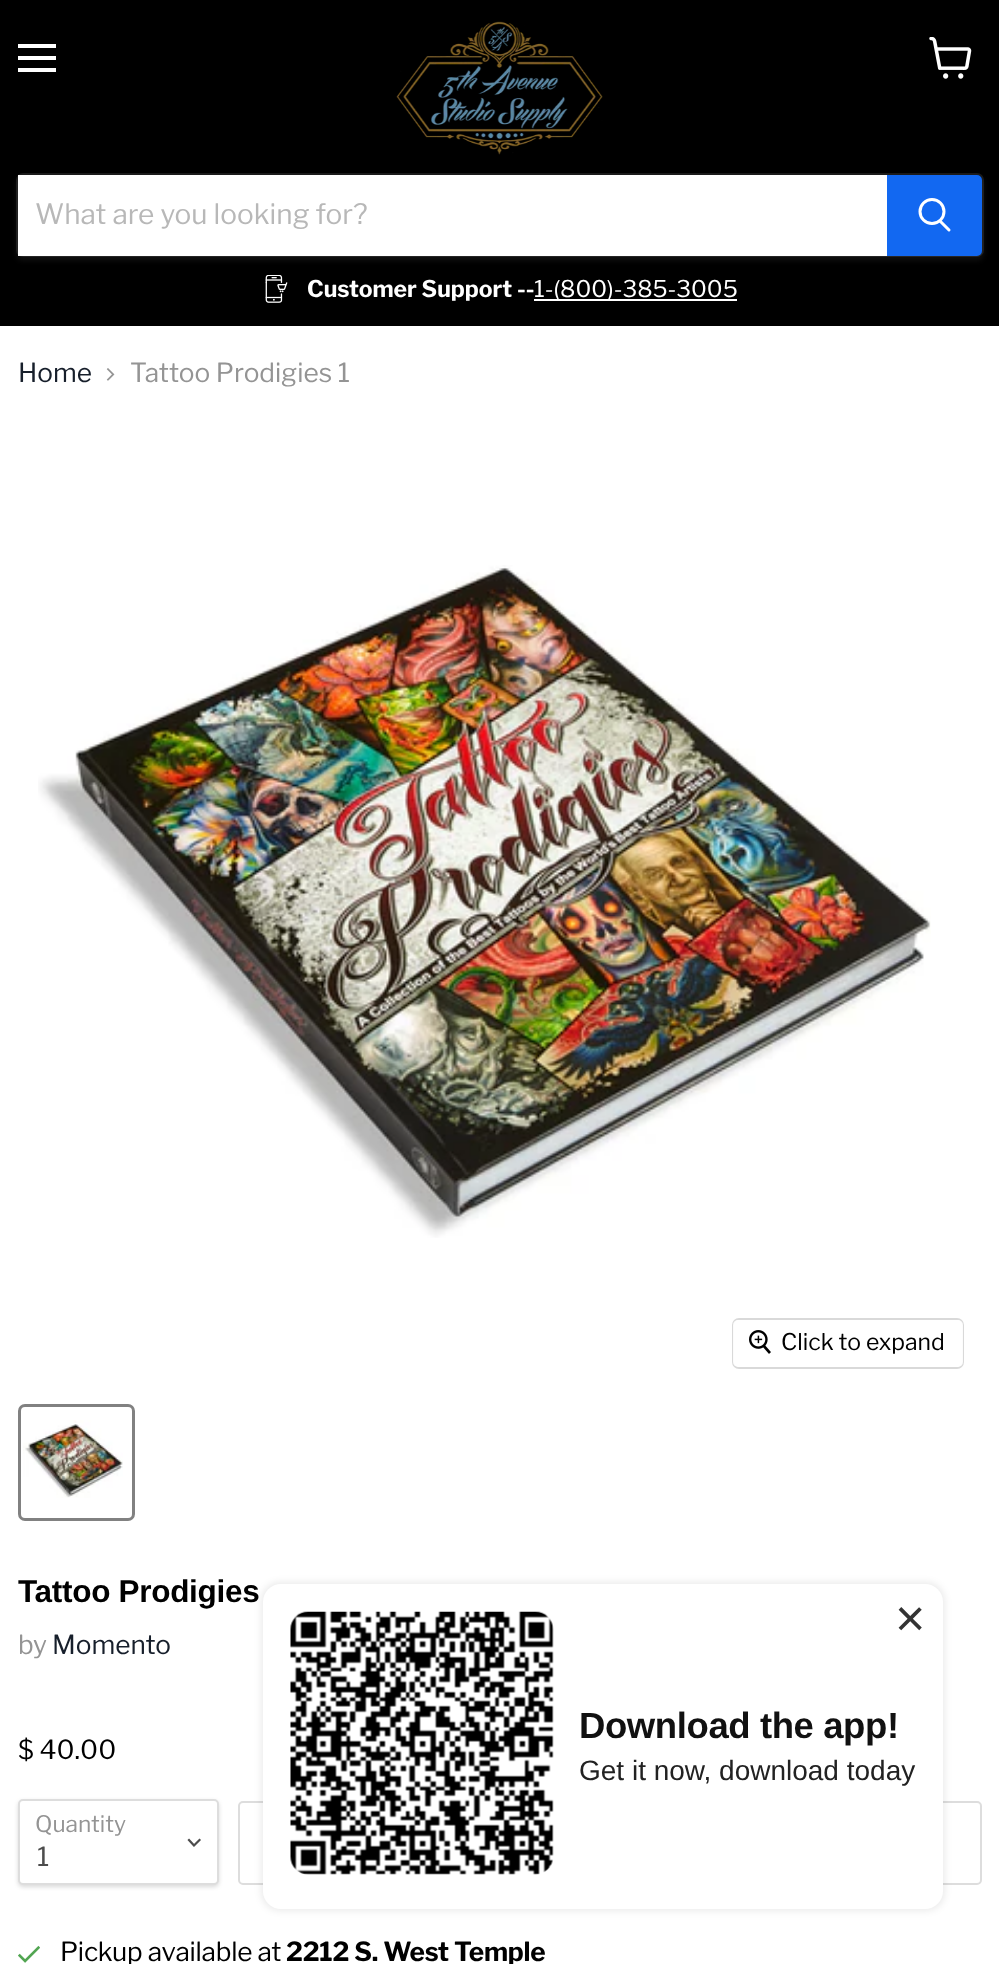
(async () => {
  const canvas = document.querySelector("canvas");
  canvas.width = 999;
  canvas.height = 1964;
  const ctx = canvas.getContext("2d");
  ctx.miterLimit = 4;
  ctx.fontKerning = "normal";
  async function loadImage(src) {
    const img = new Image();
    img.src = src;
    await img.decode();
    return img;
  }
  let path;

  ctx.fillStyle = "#ffffff";
  ctx.fillRect(0, 0, 999, 1964);
  for (const [x, y, w, h, color] of [
    [0, 0, 999, 326, "#000000"],
    [18, 44, 38, 4, "#ffffff"],
    [18, 56, 38, 4, "#ffffff"],
    [18, 68, 38, 4, "#ffffff"],
  ]) {
    ctx.fillStyle = color;
    ctx.fillRect(x, y, w, h);
  }
  ctx.drawImage(await loadImage("img/1.png"), 929, 37, 43, 42);
  ctx.drawImage(await loadImage("img/2.png"), 396, 21, 207, 134);
  ctx.fillStyle = "rgba(128, 128, 128, 0.11)";
  ctx.filter = "blur(2.5px)";
  ctx.beginPath();
  ctx.roundRect(16, 177, 968, 84, 7);
  ctx.fill();
  ctx.filter = "none";
  ctx.beginPath();
  ctx.roundRect(17, 174, 966, 82, 6);
  ctx.strokeStyle = "rgba(128, 128, 128, 0.2)";
  ctx.lineWidth = 2;
  ctx.stroke();
  ctx.fillStyle = "#ffffff";
  ctx.fillRect(18, 175, 869, 81);
  ctx.fillStyle = "#1268f1";
  ctx.beginPath();
  ctx.roundRect(888, 176, 93, 79, [0, 4, 4, 0]);
  ctx.fill();
  ctx.strokeStyle = "#1268f1";
  ctx.stroke();
  path = new Path2D("M949 230L940.5 221.5");
  ctx.strokeStyle = "#ffffff";
  ctx.lineWidth = 3;
  ctx.lineCap = "round";
  ctx.stroke(path);
  ctx.beginPath();
  ctx.arc(932, 211.5, 12, 0, Math.PI * 2);
  ctx.stroke();
  ctx.drawImage(await loadImage("img/3.png"), 265, 275, 23, 28);
  ctx.fillStyle = "#ffffff";
  ctx.fillRect(534, 299, 203, 2);
  ctx.drawImage(await loadImage("img/4.png"), 106, 368, 9, 13);
  ctx.drawImage(await loadImage("img/5.png"), 38, 565, 893, 673);
  ctx.beginPath();
  ctx.roundRect(733, 1319, 230, 49, 6);
  ctx.strokeStyle = "#d9d9d9";
  ctx.lineWidth = 2;
  ctx.stroke();
  ctx.fillStyle = "rgba(255, 255, 255, 0.9)";
  ctx.beginPath();
  ctx.roundRect(733, 1320, 230, 47, 5);
  ctx.fill();
  ctx.drawImage(await loadImage("img/6.png"), 749, 1330, 22, 24);
  ctx.beginPath();
  ctx.roundRect(19.5, 1405.5, 114, 114, 5.5);
  ctx.strokeStyle = "#818181";
  ctx.lineWidth = 3;
  ctx.stroke();
  ctx.drawImage(await loadImage("img/7.png"), 23, 1420, 100, 78);
  ctx.fillStyle = "rgba(0, 0, 0, 0.15)";
  ctx.filter = "blur(2px)";
  ctx.beginPath();
  ctx.roundRect(18, 1801, 201, 86, 5);
  ctx.fill();
  ctx.filter = "none";
  ctx.fillStyle = "#ffffff";
  ctx.beginPath();
  ctx.roundRect(19, 1800, 199, 84, 4);
  ctx.fill();
  ctx.strokeStyle = "#dddddd";
  ctx.lineWidth = 2;
  ctx.stroke();
  path = new Path2D("M194 1845.5L199.5 1840M194 1845.5L189 1840");
  ctx.strokeStyle = "#4d4d4d";
  ctx.lineWidth = 2.2;
  ctx.lineCap = "square";
  ctx.stroke(path);
  ctx.beginPath();
  ctx.roundRect(239, 1802, 742, 82, 4);
  ctx.strokeStyle = "#dddddd";
  ctx.lineWidth = 2;
  ctx.stroke();
  ctx.drawImage(await loadImage("img/8.png"), 18, 1945, 22, 18);
  ctx.fillStyle = "rgba(0, 0, 0, 0.08)";
  ctx.filter = "blur(3.5px)";
  ctx.beginPath();
  ctx.roundRect(261, 1582, 684, 329, 19);
  ctx.fill();
  ctx.filter = "none";
  ctx.fillStyle = "#ffffff";
  ctx.beginPath();
  ctx.roundRect(263, 1584, 680, 325, 18);
  ctx.fill();
  ctx.drawImage(await loadImage("img/9.png"), 290, 1611, 264, 264);
  ctx.font = "28px Libre Franklin";
  ctx.fillStyle = "#b8b8b8";
  ctx.fillText("What are you looking for?", 35, 224);
  ctx.font = "bold 23px Libre Franklin";
  ctx.fillStyle = "#ffffff";
  ctx.fillText("Customer Support --", 307, 297);
  ctx.font = "23px Libre Franklin";
  ctx.fillText("1-(800)-385-3005", 534, 297);
  ctx.font = "26.25px Libre Franklin";
  ctx.fillStyle = "#171f2b";
  ctx.fillText("Home", 18, 382);
  ctx.fillStyle = "#949494";
  ctx.fillText("Tattoo Prodigies 1", 130, 382);
  ctx.font = "23px Libre Franklin";
  ctx.fillStyle = "#000000";
  ctx.fillText("Click to expand", 781, 1350);
  ctx.letterSpacing = "-0.3px";
  ctx.font = "bold 31.5px Arimo";
  ctx.fillText("Tattoo Prodigies", 18, 1602);
  ctx.letterSpacing = "0px";
  ctx.font = "26.25px Libre Franklin";
  ctx.fillStyle = "#949494";
  ctx.fillText("by", 18, 1654);
  ctx.fillStyle = "#171f2b";
  ctx.fillText("Momento", 52, 1654);
  ctx.fillStyle = "#000000";
  ctx.fillText("$ 40.00", 18, 1759);
  ctx.font = "22.75px Libre Franklin";
  ctx.fillStyle = "#949494";
  ctx.fillText("Quantity", 35, 1832);
  ctx.font = "26.25px Libre Franklin";
  ctx.fillStyle = "#4d4d4d";
  ctx.fillText("1", 37, 1866);
  ctx.letterSpacing = "-0.25px";
  ctx.fillStyle = "#000000";
  ctx.fillText("Pickup available at", 60, 1961);
  ctx.font = "bold 26.25px Libre Franklin";
  ctx.fillText("2212 S. West Temple", 286, 1961);
  ctx.letterSpacing = "0px";
  ctx.font = "52px Liberation Sans";
  ctx.fillStyle = "#333333";
  ctx.fillText("×", 895, 1636);
  ctx.letterSpacing = "-0.4px";
  ctx.font = "bold 36.5px Arimo";
  ctx.fillStyle = "#111111";
  ctx.fillText("Download the app!", 579, 1738);
  ctx.letterSpacing = "0px";
  ctx.font = "28px Liberation Sans";
  ctx.fillStyle = "#222222";
  ctx.fillText("Get it now, download today", 579, 1780);
})();
